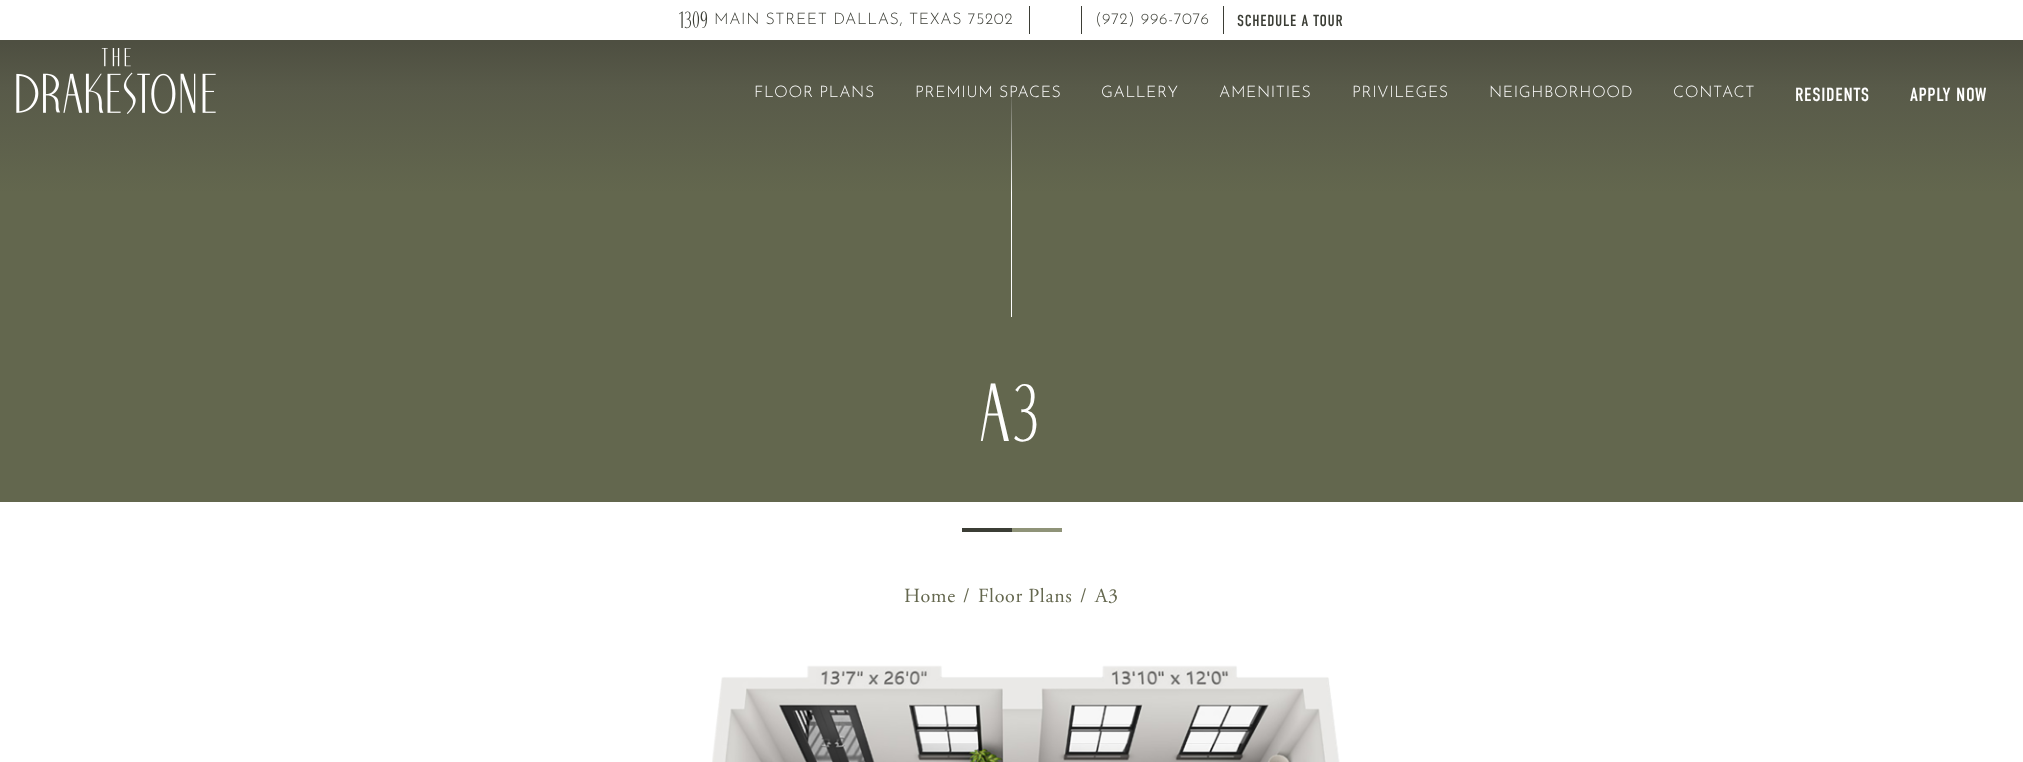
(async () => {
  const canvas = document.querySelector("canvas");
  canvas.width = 2023;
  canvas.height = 762;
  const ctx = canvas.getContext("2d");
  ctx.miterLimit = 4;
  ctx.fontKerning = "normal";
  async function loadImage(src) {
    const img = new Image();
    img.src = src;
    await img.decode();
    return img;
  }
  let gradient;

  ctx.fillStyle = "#ffffff";
  ctx.fillRect(0, 0, 2023, 762);
  for (const [x, y, w, h, color] of [
    [1029, 6, 1, 28, "#3b3d35"],
    [1081, 6, 1, 28, "#3b3d35"],
    [1223, 6, 1, 28, "#3b3d35"],
    [0, 88, 2023, 414, "#63674e"],
    [1011, 88, 1, 229, "#ffffff"],
  ]) {
    ctx.fillStyle = color;
    ctx.fillRect(x, y, w, h);
  }
  gradient = ctx.createLinearGradient(1012, 0, 1012, 194);
  gradient.addColorStop(0.22, "#4e4f41");
  gradient.addColorStop(0.45, "#585a49");
  gradient.addColorStop(1, "rgba(88, 90, 73, 0)");
  ctx.fillStyle = gradient;
  ctx.fillRect(0, 40, 2023, 152);
  ctx.drawImage(await loadImage("img/1.png"), 16, 48, 200, 66);
  ctx.fillStyle = "#3b3d35";
  ctx.fillRect(962, 528, 50, 4);
  ctx.fillStyle = "#8f9378";
  ctx.fillRect(1012, 528, 50, 4);
  ctx.drawImage(await loadImage("img/2.png"), 712, 665, 628, 97);
  ctx.letterSpacing = "0.65px";
  ctx.font = "21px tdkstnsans";
  ctx.fillStyle = "#3b3d35";
  ctx.fillText("1309", 679, 28);
  ctx.font = "300 16px Josefin Sans";
  ctx.fillText("MAIN STREET DALLAS, TEXAS 75202", 714, 24);
  ctx.fillText("(972) 996-7076", 1095, 24);
  ctx.font = "16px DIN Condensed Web";
  ctx.fillText("SCHEDULE A TOUR", 1237, 26);
  ctx.font = "300 16px Josefin Sans";
  ctx.fillStyle = "#ffffff";
  for (const [text, x, y] of [
    ["FLOOR PLANS", 754, 97],
    ["PREMIUM SPACES", 915, 97],
    ["GALLERY", 1101, 97],
    ["AMENITIES", 1219, 97],
    ["PRIVILEGES", 1352, 97],
    ["NEIGHBORHOOD", 1489, 97],
    ["CONTACT", 1673, 97],
  ]) {
    ctx.fillText(text, x, y);
  }
  ctx.font = "19px DIN Condensed Web";
  ctx.fillText("RESIDENTS", 1795, 101);
  ctx.fillText("APPLY NOW", 1910, 101);
  ctx.letterSpacing = "2px";
  ctx.font = "72px tdkstnsans";
  ctx.fillText("A3", 981, 441);
  ctx.letterSpacing = "0.65px";
  ctx.font = "20px Adobe Garamond";
  ctx.fillStyle = "#64674e";
  for (const [text, x, y] of [
    ["Home", 904, 602],
    ["/", 963, 602],
    ["Floor Plans", 978, 602],
    ["/", 1080, 602],
    ["A3", 1095, 602],
  ]) {
    ctx.fillText(text, x, y);
  }
})();
